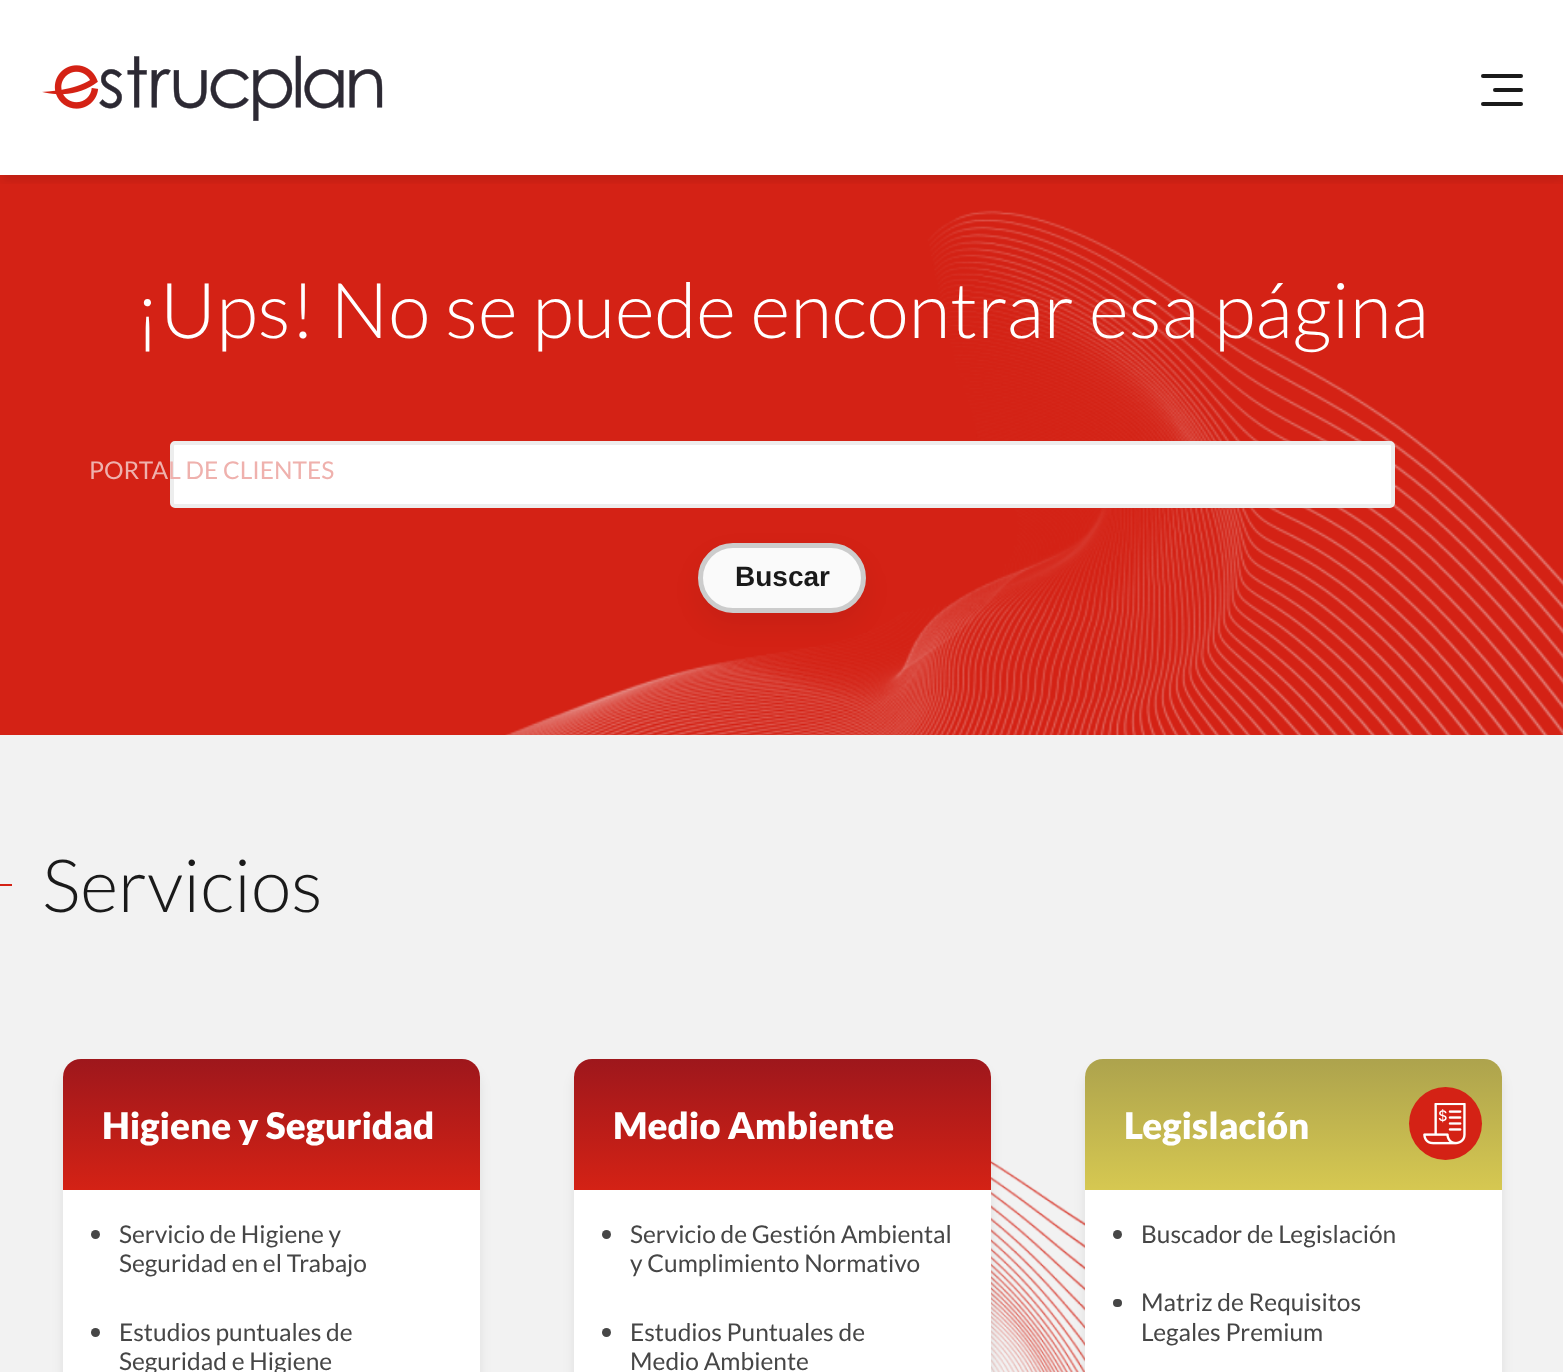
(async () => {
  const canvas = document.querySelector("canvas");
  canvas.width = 1563;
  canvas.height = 1372;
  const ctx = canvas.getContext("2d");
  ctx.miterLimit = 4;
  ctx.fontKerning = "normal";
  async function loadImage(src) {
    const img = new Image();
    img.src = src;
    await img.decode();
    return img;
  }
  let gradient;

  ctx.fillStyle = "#ffffff";
  ctx.fillRect(0, 0, 1563, 1372);
  ctx.fillStyle = "#d42215";
  ctx.fillRect(0, 175, 1563, 560);
  ctx.drawImage(await loadImage("img/1.png"), 505, 210, 1058, 525);
  ctx.fillStyle = "#ffffff";
  ctx.beginPath();
  ctx.roundRect(172, 443, 1221, 63, 3);
  ctx.fill();
  ctx.strokeStyle = "#ededed";
  ctx.lineWidth = 4;
  ctx.stroke();
  ctx.fillStyle = "rgba(0, 0, 0, 0.06)";
  ctx.filter = "blur(13px)";
  ctx.beginPath();
  ctx.roundRect(698, 555, 168, 70, 35);
  ctx.fill();
  ctx.filter = "none";
  ctx.fillStyle = "#fafafa";
  ctx.beginPath();
  ctx.roundRect(700.5, 545.5, 163, 65, 32.5);
  ctx.fill();
  ctx.strokeStyle = "#cccccc";
  ctx.lineWidth = 5;
  ctx.stroke();
  ctx.save();
  ctx.beginPath();
  ctx.rect(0, 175, 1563, 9);
  ctx.clip();
  ctx.fillStyle = "rgba(0, 0, 0, 0.1)";
  ctx.filter = "blur(5px)";
  ctx.beginPath();
  ctx.rect(2, 9, 1561, 171);
  ctx.fill();
  ctx.filter = "none";
  ctx.restore();
  ctx.drawImage(await loadImage("img/2.png"), 42, 55, 341, 66);
  ctx.fillStyle = "#1a1a1a";
  ctx.beginPath();
  ctx.roundRect(1481, 74, 42, 4, 2);
  ctx.fill();
  ctx.beginPath();
  ctx.roundRect(1493, 88, 30, 4, 2);
  ctx.fill();
  ctx.beginPath();
  ctx.roundRect(1481, 102, 42, 4, 2);
  ctx.fill();
  ctx.fillStyle = "#f2f2f2";
  ctx.fillRect(0, 735, 1563, 637);
  ctx.drawImage(await loadImage("img/3.png"), 991, 1160, 94, 212);
  ctx.fillStyle = "#d42215";
  ctx.fillRect(0, 884, 12, 2);
  ctx.fillStyle = "rgba(0, 0, 0, 0.08)";
  ctx.filter = "blur(6px)";
  ctx.beginPath();
  ctx.roundRect(63, 1069, 417, 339, 18);
  ctx.fill();
  ctx.filter = "none";
  ctx.fillStyle = "#ffffff";
  ctx.beginPath();
  ctx.roundRect(63, 1059, 417, 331, 18);
  ctx.fill();
  gradient = ctx.createLinearGradient(271, 1059, 271, 1190);
  gradient.addColorStop(0, "#9e171c");
  gradient.addColorStop(1, "#d42215");
  ctx.fillStyle = gradient;
  ctx.beginPath();
  ctx.roundRect(63, 1059, 417, 131, [18, 18, 0, 0]);
  ctx.fill();
  ctx.fillStyle = "#464646";
  ctx.beginPath();
  ctx.arc(95.5, 1234.5, 4.5, 0, Math.PI * 2);
  ctx.fill();
  ctx.beginPath();
  ctx.arc(95.5, 1332.5, 4.5, 0, Math.PI * 2);
  ctx.fill();
  ctx.fillStyle = "rgba(0, 0, 0, 0.08)";
  ctx.filter = "blur(6px)";
  ctx.beginPath();
  ctx.roundRect(574, 1069, 417, 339, 18);
  ctx.fill();
  ctx.filter = "none";
  ctx.fillStyle = "#ffffff";
  ctx.beginPath();
  ctx.roundRect(574, 1059, 417, 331, 18);
  ctx.fill();
  gradient = ctx.createLinearGradient(782, 1059, 782, 1190);
  gradient.addColorStop(0, "#9e171c");
  gradient.addColorStop(1, "#d42215");
  ctx.fillStyle = gradient;
  ctx.beginPath();
  ctx.roundRect(574, 1059, 417, 131, [18, 18, 0, 0]);
  ctx.fill();
  ctx.fillStyle = "#464646";
  ctx.beginPath();
  ctx.arc(606.5, 1234.5, 4.5, 0, Math.PI * 2);
  ctx.fill();
  ctx.beginPath();
  ctx.arc(606.5, 1332.5, 4.5, 0, Math.PI * 2);
  ctx.fill();
  ctx.fillStyle = "rgba(0, 0, 0, 0.08)";
  ctx.filter = "blur(6px)";
  ctx.beginPath();
  ctx.roundRect(1085, 1069, 417, 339, 18);
  ctx.fill();
  ctx.filter = "none";
  ctx.fillStyle = "#ffffff";
  ctx.beginPath();
  ctx.roundRect(1085, 1059, 417, 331, 18);
  ctx.fill();
  gradient = ctx.createLinearGradient(1293, 1059, 1293, 1190);
  gradient.addColorStop(0, "#ada34d");
  gradient.addColorStop(1, "#d6c851");
  ctx.fillStyle = gradient;
  ctx.beginPath();
  ctx.roundRect(1085, 1059, 417, 131, [18, 18, 0, 0]);
  ctx.fill();
  ctx.fillStyle = "#464646";
  ctx.beginPath();
  ctx.arc(1117.5, 1234.5, 4.5, 0, Math.PI * 2);
  ctx.fill();
  ctx.beginPath();
  ctx.roundRect(1113, 1299, 9, 8, 4);
  ctx.fill();
  ctx.fillStyle = "#d42215";
  ctx.beginPath();
  ctx.arc(1445.5, 1123.5, 36.5, 0, Math.PI * 2);
  ctx.fill();
  ctx.drawImage(await loadImage("img/4.png"), 1423, 1103, 43, 42);
  ctx.font = "300 77px Lato";
  ctx.fillStyle = "#ffffff";
  ctx.fillText("¡Ups! No se puede encontrar esa página", 135, 338);
  ctx.font = "bold 28px Liberation Sans";
  ctx.fillStyle = "#1a1a1a";
  ctx.fillText("Buscar", 735, 586);
  ctx.font = "24.5px Lato";
  ctx.fillStyle = "#efb1ad";
  ctx.fillText("PORTAL DE CLIENTES", 89, 479);
  ctx.font = "300 73.5px Lato";
  ctx.fillStyle = "#1a1a1a";
  ctx.fillText("Servicios", 42, 912);
  ctx.font = "900 36.75px Lato";
  ctx.fillStyle = "#ffffff";
  ctx.fillText("Higiene y Seguridad", 102, 1139);
  ctx.font = "24.5px Lato";
  ctx.fillStyle = "#464646";
  for (const [text, x, y] of [
    ["Servicio de Higiene y", 119, 1243],
    ["Seguridad en el Trabajo", 119, 1272],
    ["Estudios puntuales de", 119, 1341],
    ["Seguridad e Higiene", 119, 1370],
  ]) {
    ctx.fillText(text, x, y);
  }
  ctx.font = "900 36.75px Lato";
  ctx.fillStyle = "#ffffff";
  ctx.fillText("Medio Ambiente", 613, 1139);
  ctx.font = "24.5px Lato";
  ctx.fillStyle = "#464646";
  for (const [text, x, y] of [
    ["Servicio de Gestión Ambiental", 630, 1243],
    ["y Cumplimiento Normativo", 630, 1272],
    ["Estudios Puntuales de", 630, 1341],
    ["Medio Ambiente", 630, 1370],
  ]) {
    ctx.fillText(text, x, y);
  }
  ctx.font = "900 36.75px Lato";
  ctx.fillStyle = "#ffffff";
  ctx.fillText("Legislación", 1124, 1139);
  ctx.font = "24.5px Lato";
  ctx.fillStyle = "#464646";
  for (const [text, x, y] of [
    ["Buscador de Legislación", 1141, 1243],
    ["Matriz de Requisitos", 1141, 1311],
    ["Legales Premium", 1141, 1341],
  ]) {
    ctx.fillText(text, x, y);
  }
})();
